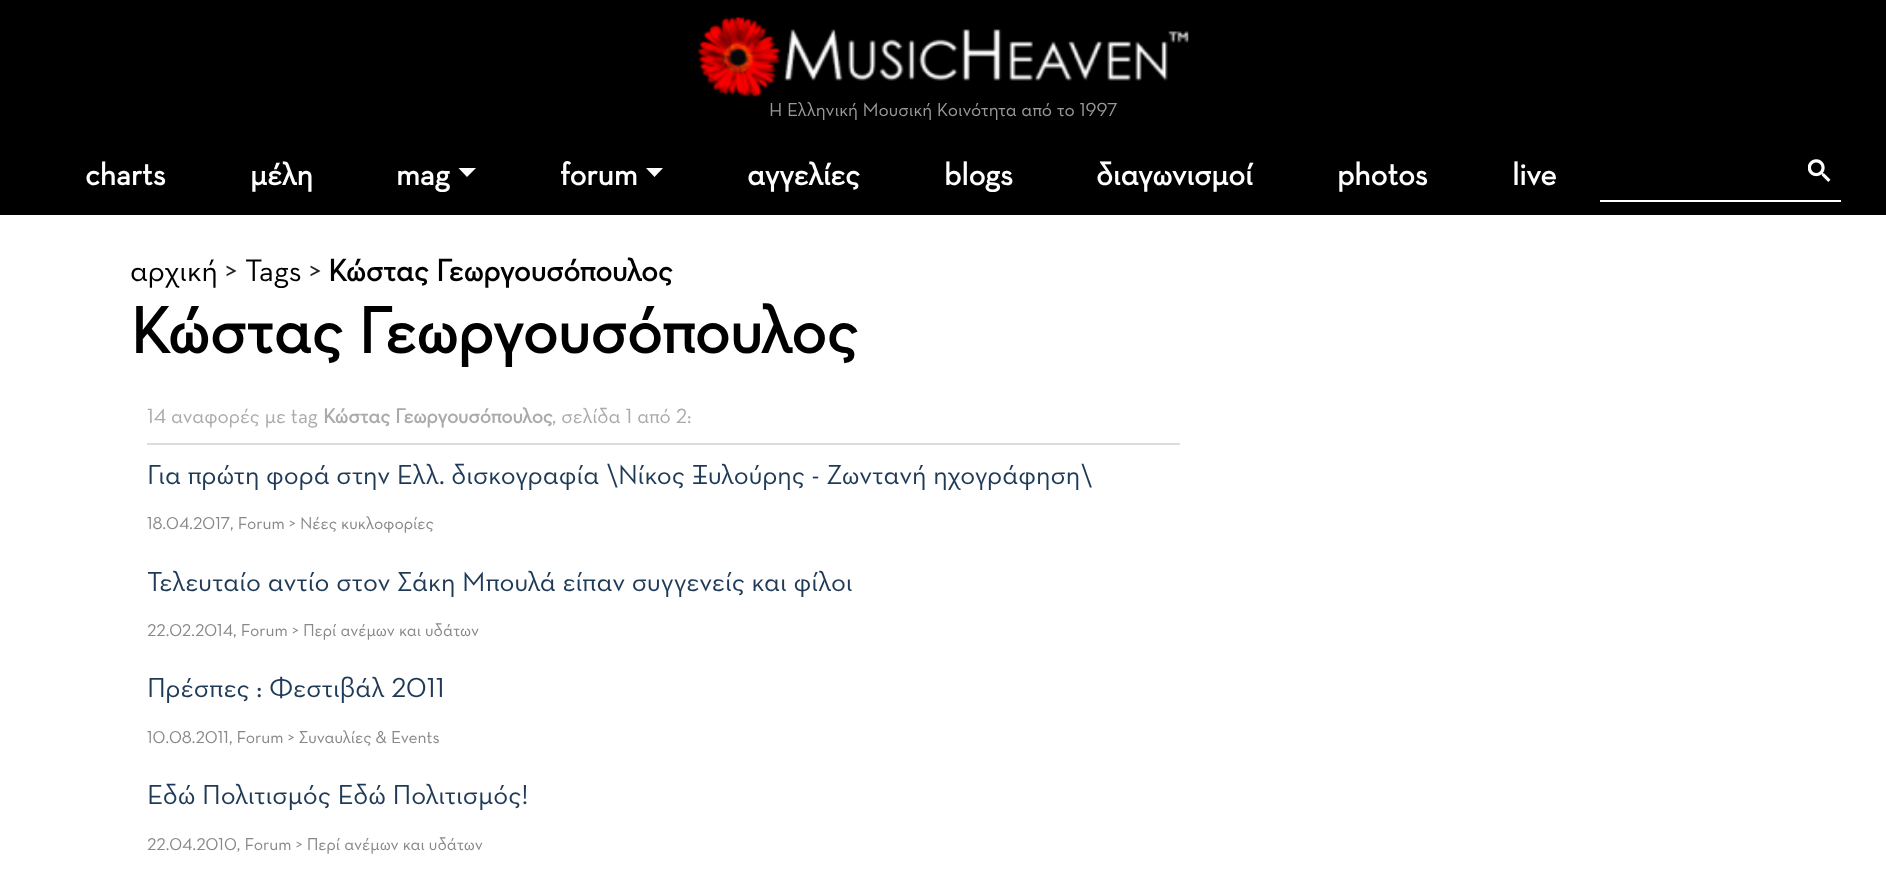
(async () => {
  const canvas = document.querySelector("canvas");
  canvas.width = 1886;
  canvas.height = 873;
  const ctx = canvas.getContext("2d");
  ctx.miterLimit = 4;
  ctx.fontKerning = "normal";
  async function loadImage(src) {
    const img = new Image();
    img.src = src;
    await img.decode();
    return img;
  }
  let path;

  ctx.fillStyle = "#ffffff";
  ctx.fillRect(0, 0, 1886, 873);
  ctx.fillStyle = "#000000";
  ctx.fillRect(0, 0, 1886, 215);
  ctx.drawImage(await loadImage("img/1.png"), 698, 17, 491, 80);
  ctx.fillStyle = "#ffffff";
  path = new Path2D("M458.5 168H476L467 177Z");
  ctx.fill(path);
  path = new Path2D("M646 168H663L654.5 177Z");
  ctx.fill(path);
  ctx.fillRect(1600, 200, 241, 2);
  ctx.drawImage(await loadImage("img/2.png"), 1808, 159, 23, 23);
  ctx.fillStyle = "#dddddd";
  ctx.fillRect(147, 443, 1033, 2);
  ctx.font = "19.25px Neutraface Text";
  ctx.fillStyle = "#999999";
  ctx.fillText("Η Ελληνική Μουσική Κοινότητα από το 1997", 769, 116);
  ctx.font = "bold 31.5px Neutraface Text";
  ctx.fillStyle = "#ffffff";
  for (const [text, x, y] of [
    ["charts", 85, 185],
    ["μέλη", 250, 185],
    ["mag", 396, 185],
    ["forum", 560, 185],
    ["αγγελίες", 747, 185],
    ["blogs", 944, 185],
    ["διαγωνισμοί", 1096, 185],
    ["photos", 1337, 185],
    ["live", 1512, 185],
  ]) {
    ctx.fillText(text, x, y);
  }
  ctx.font = "31.5px Neutraface Text";
  ctx.fillStyle = "#000000";
  ctx.fillText("αρχική", 130, 281);
  ctx.fillStyle = "#212529";
  ctx.fillText(">", 225, 281);
  ctx.fillStyle = "#000000";
  ctx.fillText("Tags", 245, 281);
  ctx.fillStyle = "#212529";
  ctx.fillText(">", 309, 281);
  ctx.font = "bold 31.5px Neutraface Text";
  ctx.fillStyle = "#000000";
  ctx.fillText("Κώστας Γεωργουσόπουλος", 328, 281);
  ctx.font = "bold 66.5px Neutraface Text";
  ctx.fillText("Κώστας Γεωργουσόπουλος", 130, 353);
  ctx.font = "21px Neutraface Text";
  ctx.fillStyle = "#aaaaaa";
  ctx.fillText("14 αναφορές με tag", 147, 423);
  ctx.font = "bold 21px Neutraface Text";
  ctx.fillText("Κώστας Γεωργουσόπουλος", 323, 423);
  ctx.font = "21px Neutraface Text";
  ctx.fillText(", σελίδα 1 από 2:", 552, 423);
  ctx.font = "28px Neutraface Text";
  ctx.fillStyle = "#1f3a57";
  ctx.fillText("Για πρώτη φορά στην Ελλ. δισκογραφία \\Νίκος Ξυλούρης - Ζωντανή ηχογράφηση\\", 147, 484);
  ctx.font = "17.5px Neutraface Text";
  ctx.fillStyle = "#888888";
  ctx.fillText("18.04.2017, Forum > Νέες κυκλοφορίες", 147, 529);
  ctx.font = "28px Neutraface Text";
  ctx.fillStyle = "#1f3a57";
  ctx.fillText("Τελευταίο αντίο στον Σάκη Μπουλά είπαν συγγενείς και φίλοι", 147, 591);
  ctx.font = "17.5px Neutraface Text";
  ctx.fillStyle = "#888888";
  ctx.fillText("22.02.2014, Forum > Περί ανέμων και υδάτων", 147, 636);
  ctx.font = "28px Neutraface Text";
  ctx.fillStyle = "#1f3a57";
  ctx.fillText("Πρέσπες : Φεστιβάλ 2011", 147, 697);
  ctx.font = "17.5px Neutraface Text";
  ctx.fillStyle = "#888888";
  ctx.fillText("10.08.2011, Forum > Συναυλίες & Events", 147, 743);
  ctx.font = "28px Neutraface Text";
  ctx.fillStyle = "#1f3a57";
  ctx.fillText("Εδώ Πολιτισμός Εδώ Πολιτισμός!", 147, 804);
  ctx.font = "17.5px Neutraface Text";
  ctx.fillStyle = "#888888";
  ctx.fillText("22.04.2010, Forum > Περί ανέμων και υδάτων", 147, 850);
})();
